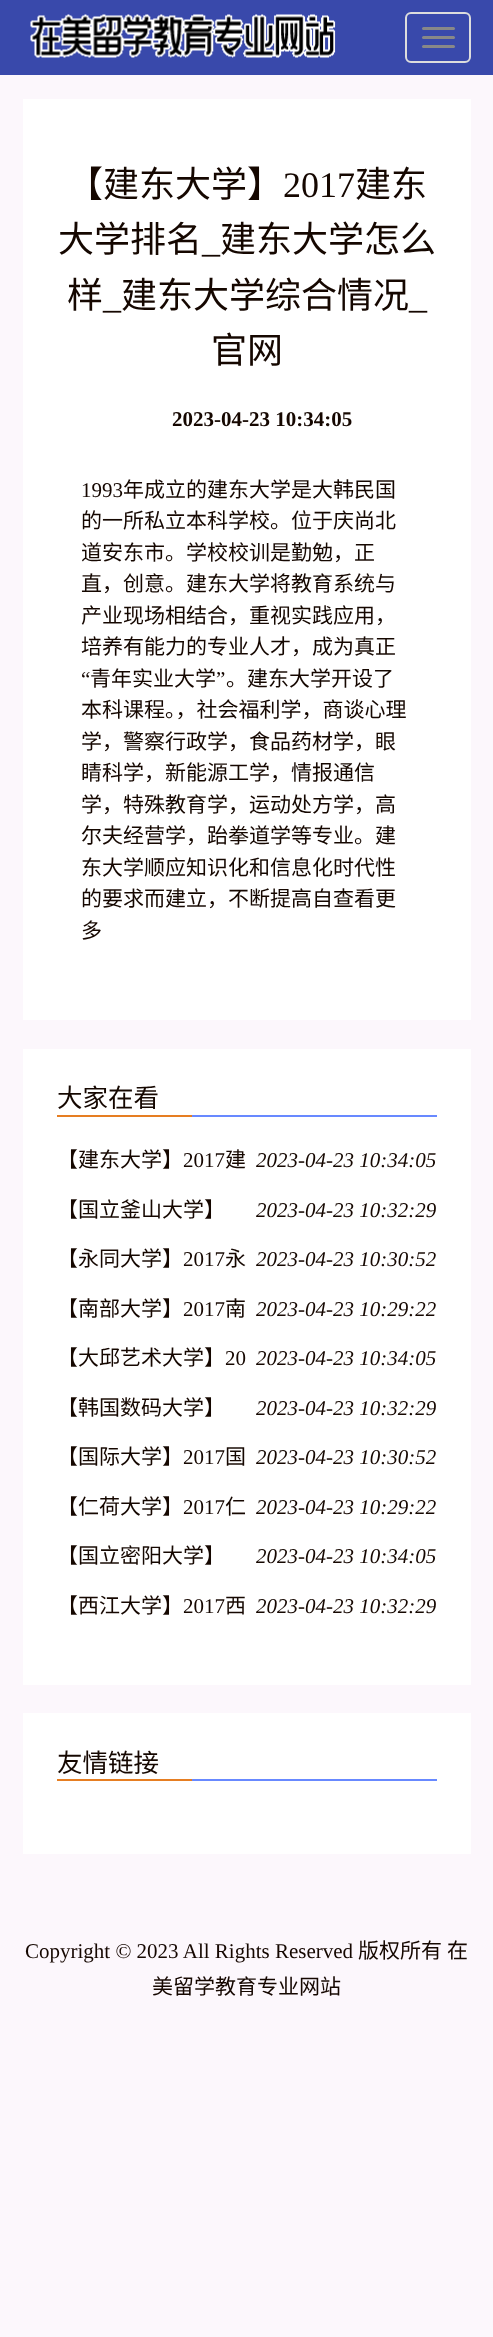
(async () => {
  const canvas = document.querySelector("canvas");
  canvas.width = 493;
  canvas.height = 2337;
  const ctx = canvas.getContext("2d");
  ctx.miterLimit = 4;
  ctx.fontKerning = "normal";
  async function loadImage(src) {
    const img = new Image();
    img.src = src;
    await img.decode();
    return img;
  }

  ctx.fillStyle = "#fcf7fc";
  ctx.fillRect(0, 0, 493, 2337);
  ctx.fillStyle = "#3949ab";
  ctx.fillRect(0, 0, 493, 75);
  ctx.drawImage(await loadImage("img/1.png"), 30, 14, 306, 44);
  ctx.beginPath();
  ctx.roundRect(406, 13, 64, 49, 5);
  ctx.strokeStyle = "#dddddd";
  ctx.lineWidth = 2;
  ctx.stroke();
  ctx.fillStyle = "#888888";
  ctx.beginPath();
  ctx.roundRect(422, 27, 33, 3, 1.5);
  ctx.fill();
  ctx.beginPath();
  ctx.roundRect(422, 36, 33, 3, 1.5);
  ctx.fill();
  ctx.beginPath();
  ctx.roundRect(422, 45, 33, 3, 1.5);
  ctx.fill();
  for (const [x, y, w, h, color] of [
    [23, 99, 448, 921, "#ffffff"],
    [23, 1049, 448, 636, "#ffffff"],
    [192, 1115, 245, 2, "#6889ff"],
    [57, 1115, 135, 2, "#e67e22"],
    [23, 1713, 448, 141, "#ffffff"],
    [192, 1779, 245, 2, "#6889ff"],
    [57, 1779, 135, 2, "#e67e22"],
  ]) {
    ctx.fillStyle = color;
    ctx.fillRect(x, y, w, h);
  }
  ctx.font = "36px Noto Sans CJK SC";
  ctx.fillStyle = "#150700";
  ctx.fillText("【建东大学】", 67, 197);
  ctx.font = "36px Liberation Serif";
  ctx.fillText("2017", 283, 197);
  ctx.font = "36px Noto Sans CJK SC";
  for (const [text, x, y] of [
    ["建东", 355, 197],
    ["大学排名", 58, 252],
    ["建东大学怎么", 220, 252],
  ]) {
    ctx.fillText(text, x, y);
  }
  ctx.font = "36px Liberation Serif";
  ctx.fillText("_", 202, 252);
  ctx.font = "36px Noto Sans CJK SC";
  ctx.fillText("样", 67, 308);
  ctx.fillText("建东大学综合情况", 121, 308);
  ctx.font = "36px Liberation Serif";
  ctx.fillText("_", 103, 308);
  ctx.fillText("_", 409, 308);
  ctx.font = "36px Noto Sans CJK SC";
  ctx.fillText("官网", 211, 363);
  ctx.font = "bold 21px Liberation Serif";
  ctx.fillText("2023-04-23 10:34:05", 172, 426);
  ctx.font = "21px Liberation Serif";
  ctx.fillText("1993", 81, 497);
  ctx.font = "21px Noto Sans CJK SC";
  for (const [text, x, y] of [
    ["年成立的建东大学是大韩民国", 123, 497],
    ["的一所私立本科学校。位于庆尚北", 81, 528],
    ["道安东市。学校校训是勤勉，正", 81, 560],
    ["直，创意。建东大学将教育系统与", 81, 591],
    ["产业现场相结合，重视实践应用，", 81, 623],
    ["培养有能力的专业人才，成为真正", 81, 654],
  ]) {
    ctx.fillText(text, x, y);
  }
  ctx.font = "21px Liberation Serif";
  ctx.fillText("“", 81, 686);
  ctx.font = "21px Noto Sans CJK SC";
  ctx.fillText("青年实业大学", 90, 686);
  ctx.font = "21px Liberation Serif";
  ctx.fillText("”", 216, 686);
  ctx.font = "21px Noto Sans CJK SC";
  for (const [text, x, y] of [
    ["。建东大学开设了", 226, 686],
    ["本科课程。，社会福利学，商谈心理", 81, 717],
    ["学，警察行政学，食品药材学，眼", 81, 749],
    ["睛科学，新能源工学，情报通信", 81, 780],
    ["学，特殊教育学，运动处方学，高", 81, 812],
    ["尔夫经营学，跆拳道学等专业。建", 81, 843],
    ["东大学顺应知识化和信息化时代性", 81, 875],
    ["的要求而建立，不断提高自查看更", 81, 906],
    ["多", 81, 938],
  ]) {
    ctx.fillText(text, x, y);
  }
  ctx.font = "25.5px Noto Sans CJK SC";
  ctx.fillText("大家在看", 57, 1107);
  ctx.font = "21px Noto Sans CJK SC";
  ctx.fillText("【建东大学】", 57, 1167);
  ctx.font = "21px Liberation Serif";
  ctx.fillText("2017", 183, 1167);
  ctx.font = "21px Noto Sans CJK SC";
  ctx.fillText("建", 225, 1167);
  ctx.font = "italic 21px Liberation Serif";
  ctx.fillText("2023-04-23 10:34:05", 256, 1167);
  ctx.font = "21px Noto Sans CJK SC";
  ctx.fillText("【国立釜山大学】", 57, 1217);
  ctx.font = "italic 21px Liberation Serif";
  ctx.fillText("2023-04-23 10:32:29", 256, 1217);
  ctx.font = "21px Noto Sans CJK SC";
  ctx.fillText("【永同大学】", 57, 1266);
  ctx.font = "21px Liberation Serif";
  ctx.fillText("2017", 183, 1266);
  ctx.font = "21px Noto Sans CJK SC";
  ctx.fillText("永", 225, 1266);
  ctx.font = "italic 21px Liberation Serif";
  ctx.fillText("2023-04-23 10:30:52", 256, 1266);
  ctx.font = "21px Noto Sans CJK SC";
  ctx.fillText("【南部大学】", 57, 1316);
  ctx.font = "21px Liberation Serif";
  ctx.fillText("2017", 183, 1316);
  ctx.font = "21px Noto Sans CJK SC";
  ctx.fillText("南", 225, 1316);
  ctx.font = "italic 21px Liberation Serif";
  ctx.fillText("2023-04-23 10:29:22", 256, 1316);
  ctx.font = "21px Noto Sans CJK SC";
  ctx.fillText("【大邱艺术大学】", 57, 1365);
  ctx.font = "21px Liberation Serif";
  ctx.fillText("20", 225, 1365);
  ctx.font = "italic 21px Liberation Serif";
  ctx.fillText("2023-04-23 10:34:05", 256, 1365);
  ctx.font = "21px Noto Sans CJK SC";
  ctx.fillText("【韩国数码大学】", 57, 1415);
  ctx.font = "italic 21px Liberation Serif";
  ctx.fillText("2023-04-23 10:32:29", 256, 1415);
  ctx.font = "21px Noto Sans CJK SC";
  ctx.fillText("【国际大学】", 57, 1464);
  ctx.font = "21px Liberation Serif";
  ctx.fillText("2017", 183, 1464);
  ctx.font = "21px Noto Sans CJK SC";
  ctx.fillText("国", 225, 1464);
  ctx.font = "italic 21px Liberation Serif";
  ctx.fillText("2023-04-23 10:30:52", 256, 1464);
  ctx.font = "21px Noto Sans CJK SC";
  ctx.fillText("【仁荷大学】", 57, 1514);
  ctx.font = "21px Liberation Serif";
  ctx.fillText("2017", 183, 1514);
  ctx.font = "21px Noto Sans CJK SC";
  ctx.fillText("仁", 225, 1514);
  ctx.font = "italic 21px Liberation Serif";
  ctx.fillText("2023-04-23 10:29:22", 256, 1514);
  ctx.font = "21px Noto Sans CJK SC";
  ctx.fillText("【国立密阳大学】", 57, 1563);
  ctx.font = "italic 21px Liberation Serif";
  ctx.fillText("2023-04-23 10:34:05", 256, 1563);
  ctx.font = "21px Noto Sans CJK SC";
  ctx.fillText("【西江大学】", 57, 1613);
  ctx.font = "21px Liberation Serif";
  ctx.fillText("2017", 183, 1613);
  ctx.font = "21px Noto Sans CJK SC";
  ctx.fillText("西", 225, 1613);
  ctx.font = "italic 21px Liberation Serif";
  ctx.fillText("2023-04-23 10:32:29", 256, 1613);
  ctx.font = "25.5px Noto Sans CJK SC";
  ctx.fillText("友情链接", 57, 1772);
  ctx.font = "21px Liberation Serif";
  ctx.fillText("Copyright © 2023 All Rights Reserved", 25, 1958);
  ctx.font = "21px Noto Sans CJK SC";
  for (const [text, x, y] of [
    ["版权所有", 358, 1958],
    ["在", 447, 1958],
    ["美留学教育专业网站", 152, 1994],
  ]) {
    ctx.fillText(text, x, y);
  }
})();
